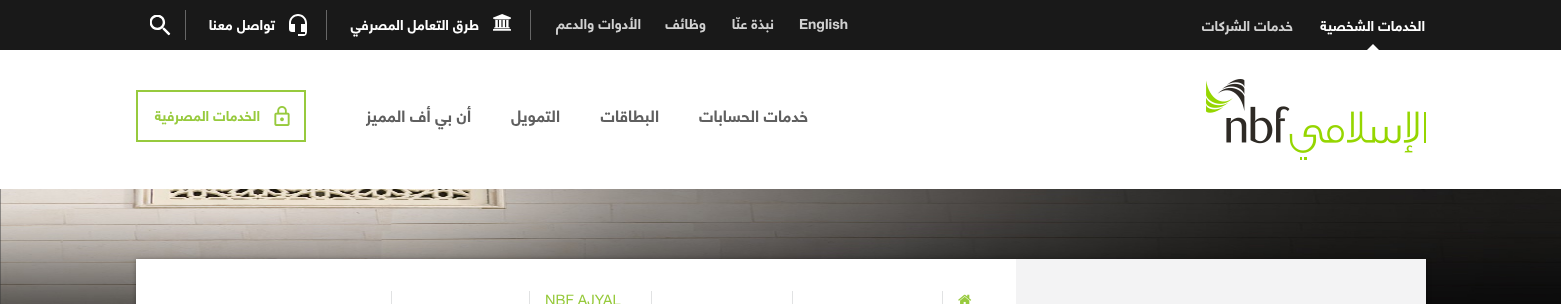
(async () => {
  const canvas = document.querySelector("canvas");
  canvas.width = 1561;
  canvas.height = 304;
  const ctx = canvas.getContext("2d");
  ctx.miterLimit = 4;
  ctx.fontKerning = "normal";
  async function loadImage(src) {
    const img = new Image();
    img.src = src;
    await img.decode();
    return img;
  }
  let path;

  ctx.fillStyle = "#3a3a3a";
  ctx.fillRect(0, 0, 1561, 304);
  ctx.fillStyle = "#ffffff";
  ctx.fillRect(0, 50, 1561, 139);
  ctx.fillStyle = "#191919";
  ctx.fillRect(0, 0, 1561, 50);
  ctx.fillStyle = "#ffffff";
  path = new Path2D("M1379 50H1367L1373 44Z");
  ctx.fill(path);
  ctx.fillStyle = "#666666";
  ctx.fillRect(530, 10, 1, 30);
  ctx.drawImage(await loadImage("img/1.png"), 493, 14, 18, 17);
  ctx.fillRect(326, 10, 1, 30);
  ctx.drawImage(await loadImage("img/2.png"), 289, 14, 18, 22);
  ctx.fillRect(185, 10, 1, 30);
  ctx.drawImage(await loadImage("img/3.png"), 150, 15, 21, 21);
  ctx.drawImage(await loadImage("img/4.png"), 1206, 79, 220, 81);
  ctx.strokeStyle = "#97ca3d";
  ctx.lineWidth = 2;
  ctx.strokeRect(137, 91, 168, 50);
  ctx.drawImage(await loadImage("img/5.png"), 274, 106, 16, 20);
  ctx.drawImage(await loadImage("img/7.png"), 0, 189, 1561, 115);
  ctx.fillStyle = "rgba(0, 0, 0, 0.3)";
  ctx.filter = "blur(2.5px)";
  ctx.beginPath();
  ctx.rect(136, 259, 1290, 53);
  ctx.fill();
  ctx.filter = "none";
  ctx.fillStyle = "#ffffff";
  ctx.fillRect(136, 259, 880, 45);
  ctx.fillStyle = "#f3f3f4";
  ctx.fillRect(1016, 259, 410, 45);
  ctx.drawImage(await loadImage("img/6.png"), 958, 294, 14, 10);
  for (const [x, y, w, h, color] of [
    [942, 291, 1, 13, "#e1e2e3"],
    [792, 291, 1, 13, "#e1e2e3"],
    [651, 291, 1, 13, "#e1e2e3"],
    [529, 291, 1, 13, "#e1e2e3"],
    [391, 291, 1, 13, "#e1e2e3"],
  ]) {
    ctx.fillStyle = color;
    ctx.fillRect(x, y, w, h);
  }
  ctx.direction = "rtl";
  ctx.font = "bold 14px 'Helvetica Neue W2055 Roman'";
  ctx.fillStyle = "#ffffff";
  ctx.fillText("الخدمات الشخصية", 1425, 31);
  ctx.fillStyle = "#d1d1d1";
  ctx.fillText("خدمات الشركات", 1293, 31);
  ctx.direction = "ltr";
  ctx.fillText("English", 799, 29);
  ctx.direction = "rtl";
  for (const [text, x, y] of [
    ["نبذة عنّا", 774, 29],
    ["وظائف", 706, 29],
    ["الأدوات والدعم", 641, 29],
  ]) {
    ctx.fillText(text, x, y);
  }
  ctx.fillStyle = "#ffffff";
  ctx.fillText("طرق التعامل المصرفي", 479, 30);
  ctx.fillText("تواصل معنا", 275, 30);
  ctx.font = "bold 16px 'Helvetica Neue W2055 Roman'";
  ctx.fillStyle = "#5f5f5f";
  for (const [text, x, y] of [
    ["خدمات الحسابات", 808, 122],
    ["البطاقات", 659, 122],
    ["التمويل", 560, 122],
    ["أن بي أف المميز", 471, 122],
  ]) {
    ctx.fillText(text, x, y);
  }
  ctx.font = "bold 14px 'Helvetica Neue W2055 Roman'";
  ctx.fillStyle = "#97ca3d";
  ctx.fillText("الخدمات المصرفية", 260, 121);
  ctx.direction = "ltr";
  ctx.font = "14.5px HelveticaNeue";
  ctx.fillText("NBF AJYAL", 545, 305);
})();
